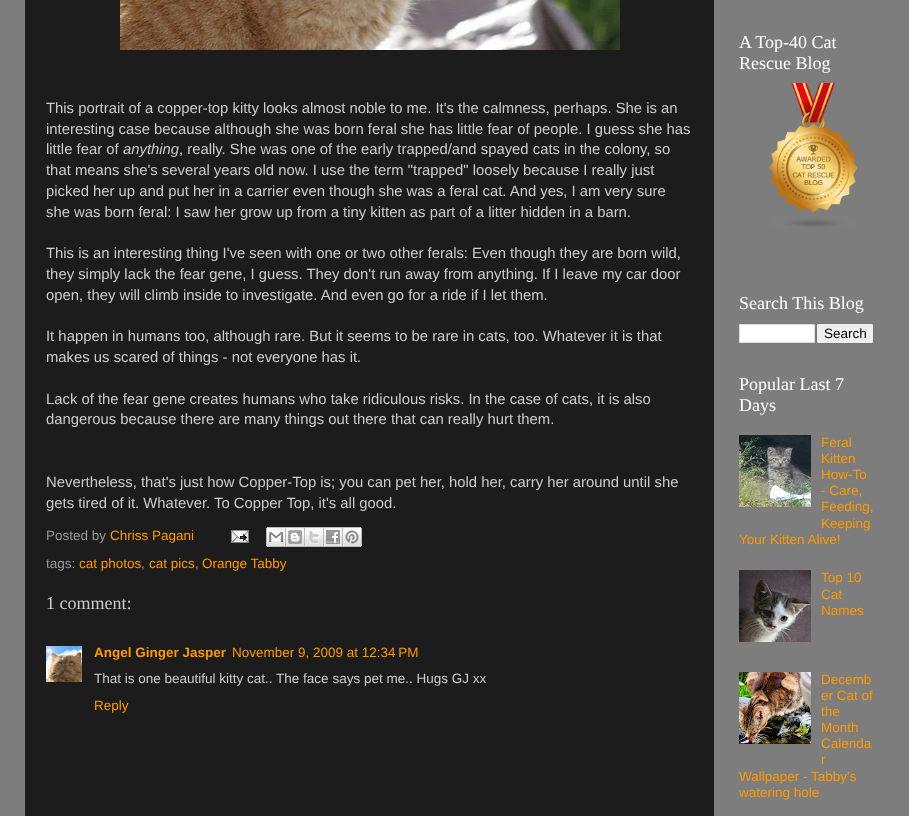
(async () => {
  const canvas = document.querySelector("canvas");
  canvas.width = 909;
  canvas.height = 816;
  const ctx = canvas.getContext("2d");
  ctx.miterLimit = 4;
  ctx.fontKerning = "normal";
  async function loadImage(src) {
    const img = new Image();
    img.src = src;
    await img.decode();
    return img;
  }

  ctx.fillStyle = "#7d7d7d";
  ctx.fillRect(0, 0, 909, 816);
  ctx.fillStyle = "#1c1c1c";
  ctx.fillRect(25, 0, 689, 816);
  ctx.drawImage(await loadImage("img/1.png"), 120, 0, 500, 50);
  ctx.drawImage(await loadImage("img/2.png"), 231, 530, 18, 13);
  ctx.drawImage(await loadImage("img/3.png"), 266, 527, 20, 20);
  ctx.drawImage(await loadImage("img/4.png"), 286, 527, 19, 20);
  ctx.drawImage(await loadImage("img/5.png"), 305, 527, 19, 20);
  ctx.drawImage(await loadImage("img/6.png"), 324, 527, 19, 20);
  ctx.drawImage(await loadImage("img/7.png"), 343, 527, 19, 20);
  ctx.drawImage(await loadImage("img/8.png"), 46, 646, 36, 36);
  ctx.drawImage(await loadImage("img/9.png"), 769, 83, 89, 144);
  ctx.fillStyle = "#ffffff";
  ctx.beginPath();
  ctx.rect(739.5, 324.5, 75, 18);
  ctx.fill();
  ctx.strokeStyle = "#dddddd";
  ctx.stroke();
  ctx.fillStyle = "#efefef";
  ctx.beginPath();
  ctx.roundRect(816.5, 323.5, 57, 20, 1.5);
  ctx.fill();
  ctx.strokeStyle = "#767676";
  ctx.stroke();
  ctx.drawImage(await loadImage("img/10.png"), 739, 435, 72, 72);
  ctx.drawImage(await loadImage("img/11.png"), 739, 570, 72, 72);
  ctx.drawImage(await loadImage("img/12.png"), 739, 672, 72, 72);
  ctx.font = "14.85px Liberation Sans";
  ctx.fillStyle = "#cccccc";
  for (const [text, x, y] of [
    ["This portrait of a copper-top kitty looks almost noble to me. It's the calmness, perhaps. She is an", 46, 113],
    ["interesting case because although she was born feral she has little fear of people. I guess she has", 46, 134],
    ["little fear of", 46, 154],
  ]) {
    ctx.fillText(text, x, y);
  }
  ctx.font = "italic 14.85px Liberation Sans";
  ctx.fillText("anything", 123, 154);
  ctx.font = "14.85px Liberation Sans";
  for (const [text, x, y] of [
    [", really. She was one of the early trapped/and spayed cats in the colony, so", 179, 154],
    ["that means she's several years old now. I use the term \"trapped\" loosely because I really just", 46, 175],
    ["picked her up and put her in a carrier even though she was a feral cat. And yes, I am very sure", 46, 196],
    ["she was born feral: I saw her grow up from a tiny kitten as part of a litter hidden in a barn.", 46, 217],
    ["This is an interesting thing I've seen with one or two other ferals: Even though they are born wild,", 46, 258],
    ["they simply lack the fear gene, I guess. They don't run away from anything. If I leave my car door", 46, 279],
    ["open, they will climb inside to investigate. And even go for a ride if I let them.", 46, 300],
    ["It happen in humans too, although rare. But it seems to be rare in cats, too. Whatever it is that", 46, 341],
    ["makes us scared of things - not everyone has it.", 46, 362],
    ["Lack of the fear gene creates humans who take ridiculous risks. In the case of cats, it is also", 46, 404],
    ["dangerous because there are many things out there that can really hurt them.", 46, 424],
    ["Nevertheless, that's just how Copper-Top is; you can pet her, hold her, carry her around until she", 46, 487],
    ["gets tired of it. Whatever. To Copper Top, it's all good.", 46, 508],
  ]) {
    ctx.fillText(text, x, y);
  }
  ctx.font = "13.5px Liberation Sans";
  ctx.fillStyle = "#999999";
  ctx.fillText("Posted by", 46, 540);
  ctx.fillStyle = "#ff9900";
  ctx.fillText("Chriss Pagani", 110, 540);
  ctx.fillStyle = "#999999";
  ctx.fillText("tags:", 46, 568);
  ctx.fillStyle = "#ff9900";
  ctx.fillText("cat photos", 79, 568);
  ctx.fillStyle = "#999999";
  ctx.fillText(",", 141, 568);
  ctx.fillStyle = "#ff9900";
  ctx.fillText("cat pics", 149, 568);
  ctx.fillStyle = "#999999";
  ctx.fillText(",", 195, 568);
  ctx.fillStyle = "#ff9900";
  ctx.fillText("Orange Tabby", 202, 568);
  ctx.font = "18px Liberation Serif";
  ctx.fillStyle = "#cccccc";
  ctx.fillText("1 comment:", 46, 609);
  ctx.font = "bold 13.5px Liberation Sans";
  ctx.fillStyle = "#ff9900";
  ctx.fillText("Angel Ginger Jasper", 94, 657);
  ctx.font = "13.5px Liberation Sans";
  ctx.fillText("November 9, 2009 at 12:34 PM", 232, 657);
  ctx.fillStyle = "#cccccc";
  ctx.fillText("That is one beautiful kitty cat.. The face says pet me.. Hugs GJ xx", 94, 683);
  ctx.fillStyle = "#ff9900";
  ctx.fillText("Reply", 94, 710);
  ctx.font = "18px Liberation Serif";
  ctx.fillStyle = "#ffffff";
  for (const [text, x, y] of [
    ["A Top-40 Cat", 739, 48],
    ["Rescue Blog", 739, 69],
    ["Search This Blog", 739, 309],
  ]) {
    ctx.fillText(text, x, y);
  }
  ctx.font = "13.5px Liberation Sans";
  ctx.fillStyle = "#000000";
  ctx.fillText("Search", 824, 338);
  ctx.font = "18px Liberation Serif";
  ctx.fillStyle = "#ffffff";
  ctx.fillText("Popular Last 7", 739, 390);
  ctx.fillText("Days", 739, 411);
  ctx.font = "13.5px Liberation Sans";
  ctx.fillStyle = "#ff9900";
  for (const [text, x, y] of [
    ["Feral", 821, 447],
    ["Kitten", 821, 463],
    ["How-To", 821, 479],
    ["- Care,", 821, 495],
    ["Feeding,", 821, 511],
    ["Keeping", 821, 528],
    ["Your Kitten Alive!", 739, 544],
    ["Top 10", 821, 582],
    ["Cat", 821, 599],
    ["Names", 821, 615],
    ["Decemb", 821, 684],
    ["er Cat of", 821, 700],
    ["the", 821, 716],
    ["Month", 821, 732],
    ["Calenda", 821, 748],
    ["r", 821, 764],
    ["Wallpaper - Tabby's", 739, 781],
    ["watering hole", 739, 797],
  ]) {
    ctx.fillText(text, x, y);
  }
})();
